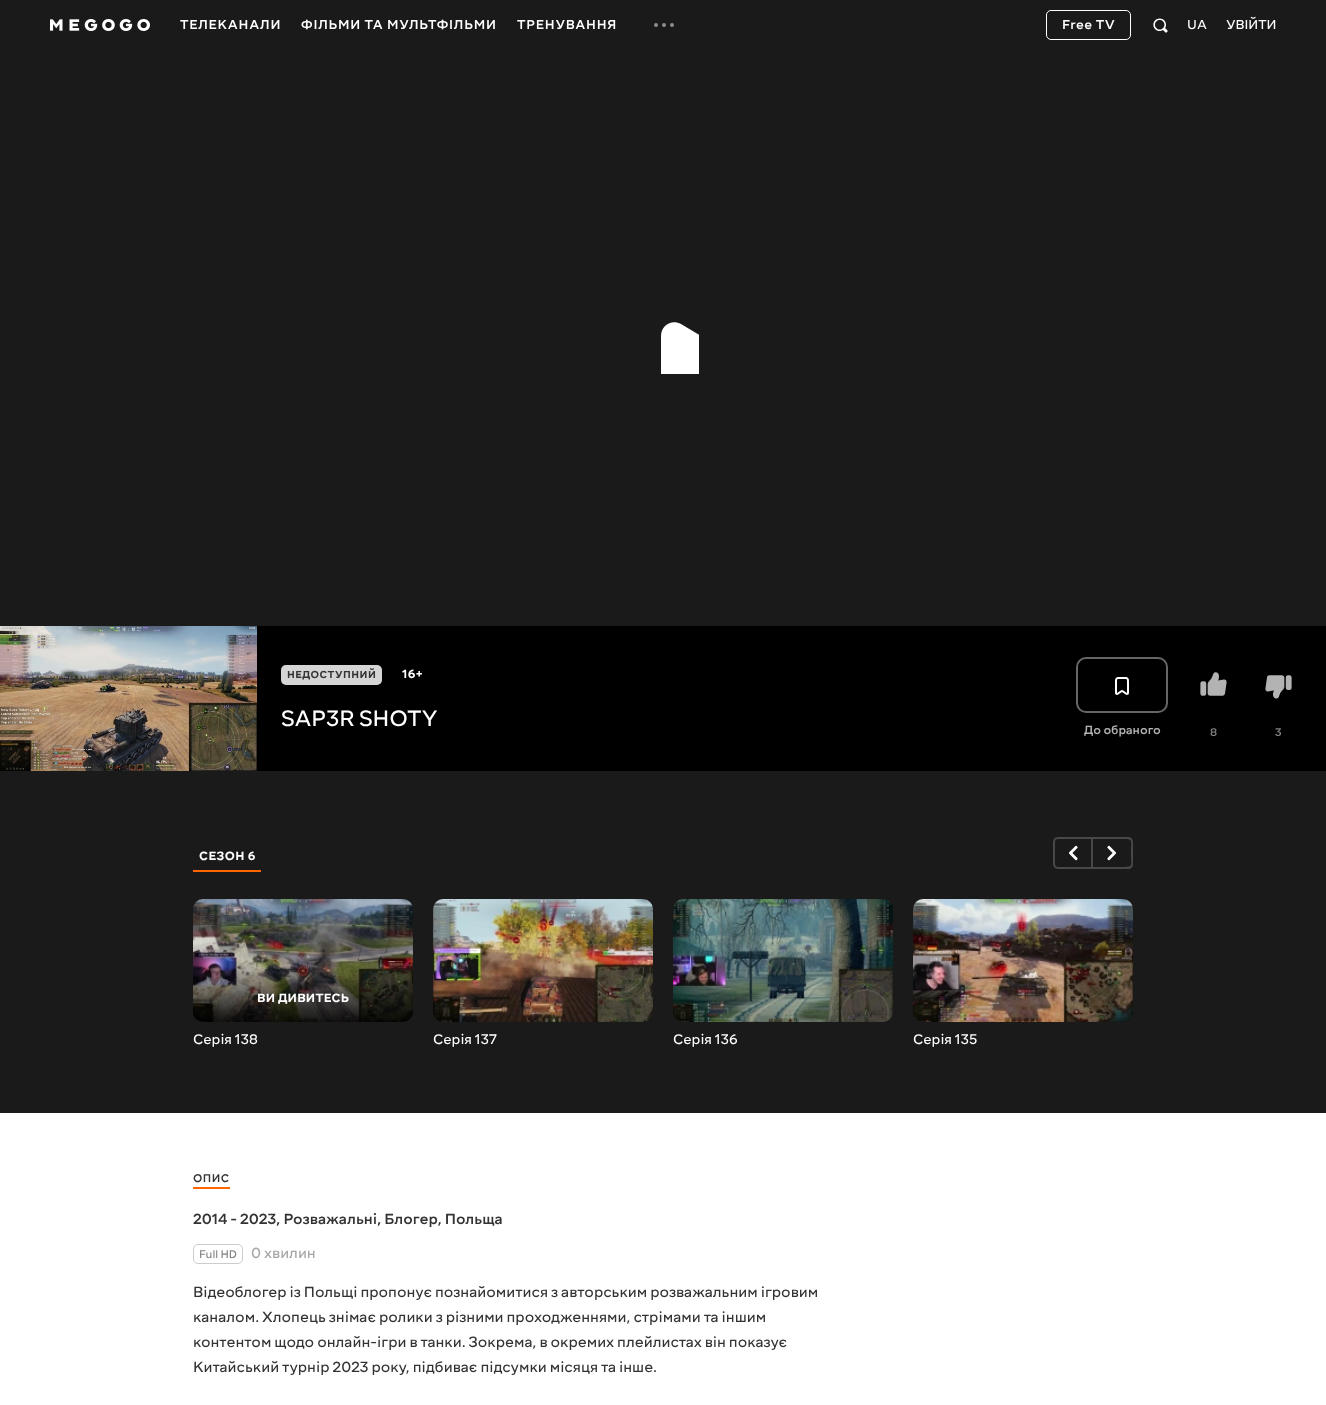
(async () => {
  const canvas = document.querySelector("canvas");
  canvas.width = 1326;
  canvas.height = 1405;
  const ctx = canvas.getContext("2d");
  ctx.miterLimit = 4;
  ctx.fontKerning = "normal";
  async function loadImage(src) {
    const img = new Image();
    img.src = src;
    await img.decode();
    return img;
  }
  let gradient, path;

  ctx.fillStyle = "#ffffff";
  ctx.fillRect(0, 0, 1326, 1405);
  ctx.fillStyle = "#1a1a1a";
  ctx.fillRect(0, 0, 1326, 626);
  ctx.drawImage(await loadImage("img/1.png"), 50, 19, 100, 12);
  ctx.drawImage(await loadImage("img/2.png"), 654, 23, 20, 4);
  ctx.beginPath();
  ctx.roundRect(1046.5, 10.5, 84, 29, 4.5);
  ctx.strokeStyle = "#ffffff";
  ctx.stroke();
  ctx.drawImage(await loadImage("img/3.png"), 1153, 18, 15, 15);
  ctx.fillStyle = "#000000";
  ctx.fillRect(257, 626, 1069, 145);
  ctx.save();
  ctx.beginPath();
  ctx.rect(627, 302, 72, 72);
  ctx.clip();
  ctx.fillStyle = "#ffffff";
  path = new Path2D("M681 324C672 319 661 325 661 336V430C661 441 672 447 681 442L760 395C769 389 769 377 760 371Z");
  ctx.fill(path);
  ctx.restore();
  ctx.drawImage(await loadImage("img/4.png"), 0, 626, 257, 145);
  ctx.fillStyle = "#d5d5d5";
  ctx.beginPath();
  ctx.roundRect(281, 665, 101, 20, 5);
  ctx.fill();
  ctx.beginPath();
  ctx.roundRect(1077, 658, 90, 54, 9);
  ctx.strokeStyle = "#666666";
  ctx.lineWidth = 2;
  ctx.stroke();
  ctx.drawImage(await loadImage("img/5.png"), 1115, 677, 14, 18);
  ctx.drawImage(await loadImage("img/6.png"), 1200, 672, 27, 24);
  ctx.drawImage(await loadImage("img/7.png"), 1265, 675, 27, 24);
  ctx.fillStyle = "#1a1a1a";
  ctx.fillRect(0, 771, 1326, 342);
  ctx.fillStyle = "#ff6600";
  ctx.fillRect(193, 870, 68, 2);
  ctx.beginPath();
  ctx.roundRect(1054, 838, 38, 30, [4, 0, 0, 4]);
  ctx.strokeStyle = "#484848";
  ctx.stroke();
  ctx.drawImage(await loadImage("img/8.png"), 1069, 845, 9, 16);
  ctx.fillStyle = "#484848";
  path = new Path2D("M1093 837H1128C1131 837 1133 839 1133 842V864C1133 867 1131 869 1128 869H1093ZM1093 839H1122C1134 839 1131 840 1131 853C1131 866 1134 867 1122 867H1093Z");
  ctx.fill(path, "evenodd");
  ctx.drawImage(await loadImage("img/9.png"), 1107, 845, 9, 16);
  ctx.drawImage(await loadImage("img/10.png"), 193, 899, 220, 123);
  gradient = ctx.createLinearGradient(303, 961, 303, 1022);
  gradient.addColorStop(0.1, "rgba(0, 0, 0, 0)");
  gradient.addColorStop(1, "rgba(0, 0, 0, 0.85)");
  ctx.fillStyle = gradient;
  ctx.beginPath();
  ctx.roundRect(193, 961, 220, 61, 10);
  ctx.fill();
  ctx.drawImage(await loadImage("img/11.png"), 433, 899, 220, 123);
  ctx.drawImage(await loadImage("img/12.png"), 673, 899, 220, 123);
  ctx.drawImage(await loadImage("img/13.png"), 913, 899, 220, 123);
  ctx.fillStyle = "#ff6600";
  ctx.fillRect(193, 1187, 37, 2);
  ctx.beginPath();
  ctx.roundRect(193.5, 1244.5, 49, 19, 4.5);
  ctx.strokeStyle = "#cccccc";
  ctx.lineWidth = 1;
  ctx.stroke();
  ctx.letterSpacing = "0.8px";
  ctx.font = "500 14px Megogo";
  ctx.fillStyle = "#ffffff";
  for (const [text, x, y] of [
    ["ТЕЛЕКАНАЛИ", 180, 29],
    ["ФІЛЬМИ ТА МУЛЬТФІЛЬМИ", 301, 29],
    ["ТРЕНУВАННЯ", 517, 29],
  ]) {
    ctx.fillText(text, x, y);
  }
  ctx.letterSpacing = "0.5px";
  ctx.fillText("Free TV", 1062, 29);
  ctx.letterSpacing = "0.8px";
  ctx.font = "14px Megogo";
  ctx.fillText("UA", 1187, 29);
  ctx.letterSpacing = "0px";
  ctx.fillText("УВІЙТИ", 1226, 29);
  ctx.letterSpacing = "0.5px";
  ctx.font = "600 11px Megogo";
  ctx.fillStyle = "#333333";
  ctx.fillText("НЕДОСТУПНИЙ", 287, 678);
  ctx.letterSpacing = "0.25px";
  ctx.font = "600 13px Megogo";
  ctx.fillStyle = "#ffffff";
  ctx.fillText("16+", 402, 678);
  ctx.letterSpacing = "0px";
  ctx.font = "24px Megogo";
  ctx.fillText("SAP3R SHOTY", 281, 726);
  ctx.font = "500 13px Megogo";
  ctx.fillStyle = "#b3b3b3";
  ctx.fillText("До обраного", 1084, 734);
  ctx.font = "500 12px Megogo";
  ctx.fillStyle = "#808080";
  ctx.fillText("8", 1210, 736);
  ctx.fillText("3", 1275, 736);
  ctx.letterSpacing = "0.5px";
  ctx.font = "600 13px Megogo";
  ctx.fillStyle = "#ffffff";
  ctx.fillText("СЕЗОН 6", 199, 860);
  ctx.letterSpacing = "0.25px";
  ctx.fillText("ВИ ДИВИТЕСЬ", 257, 1002);
  ctx.letterSpacing = "0px";
  ctx.font = "15px Megogo";
  for (const [text, x, y] of [
    ["Серія 138", 193, 1044],
    ["Серія 137", 433, 1044],
    ["Серія 136", 673, 1044],
    ["Серія 135", 913, 1044],
  ]) {
    ctx.fillText(text, x, y);
  }
  ctx.letterSpacing = "0.5px";
  ctx.font = "500 12px Megogo";
  ctx.fillStyle = "#333333";
  ctx.fillText("ОПИС", 193, 1182);
  ctx.letterSpacing = "0px";
  ctx.font = "500 16px Megogo";
  ctx.fillText("2014 - 2023, Розважальні, Блогер, Польща", 193, 1224);
  ctx.font = "12px Megogo";
  ctx.fillStyle = "#808080";
  ctx.fillText("Full HD", 199, 1258);
  ctx.font = "16px Megogo";
  ctx.fillStyle = "#a6a6a6";
  ctx.fillText("0 хвилин", 251, 1258);
  ctx.fillStyle = "#333333";
  for (const [text, x, y] of [
    ["Відеоблогер із Польщі пропонує познайомитися з авторським розважальним ігровим", 193, 1297],
    ["каналом. Хлопець знімає ролики з різними проходженнями, стрімами та іншим", 193, 1322],
    ["контентом щодо онлайн-ігри в танки. Зокрема, в окремих плейлистах він показує", 193, 1347],
    ["Китайський турнір 2023 року, підбиває підсумки місяця та інше.", 193, 1372],
  ]) {
    ctx.fillText(text, x, y);
  }
})();
